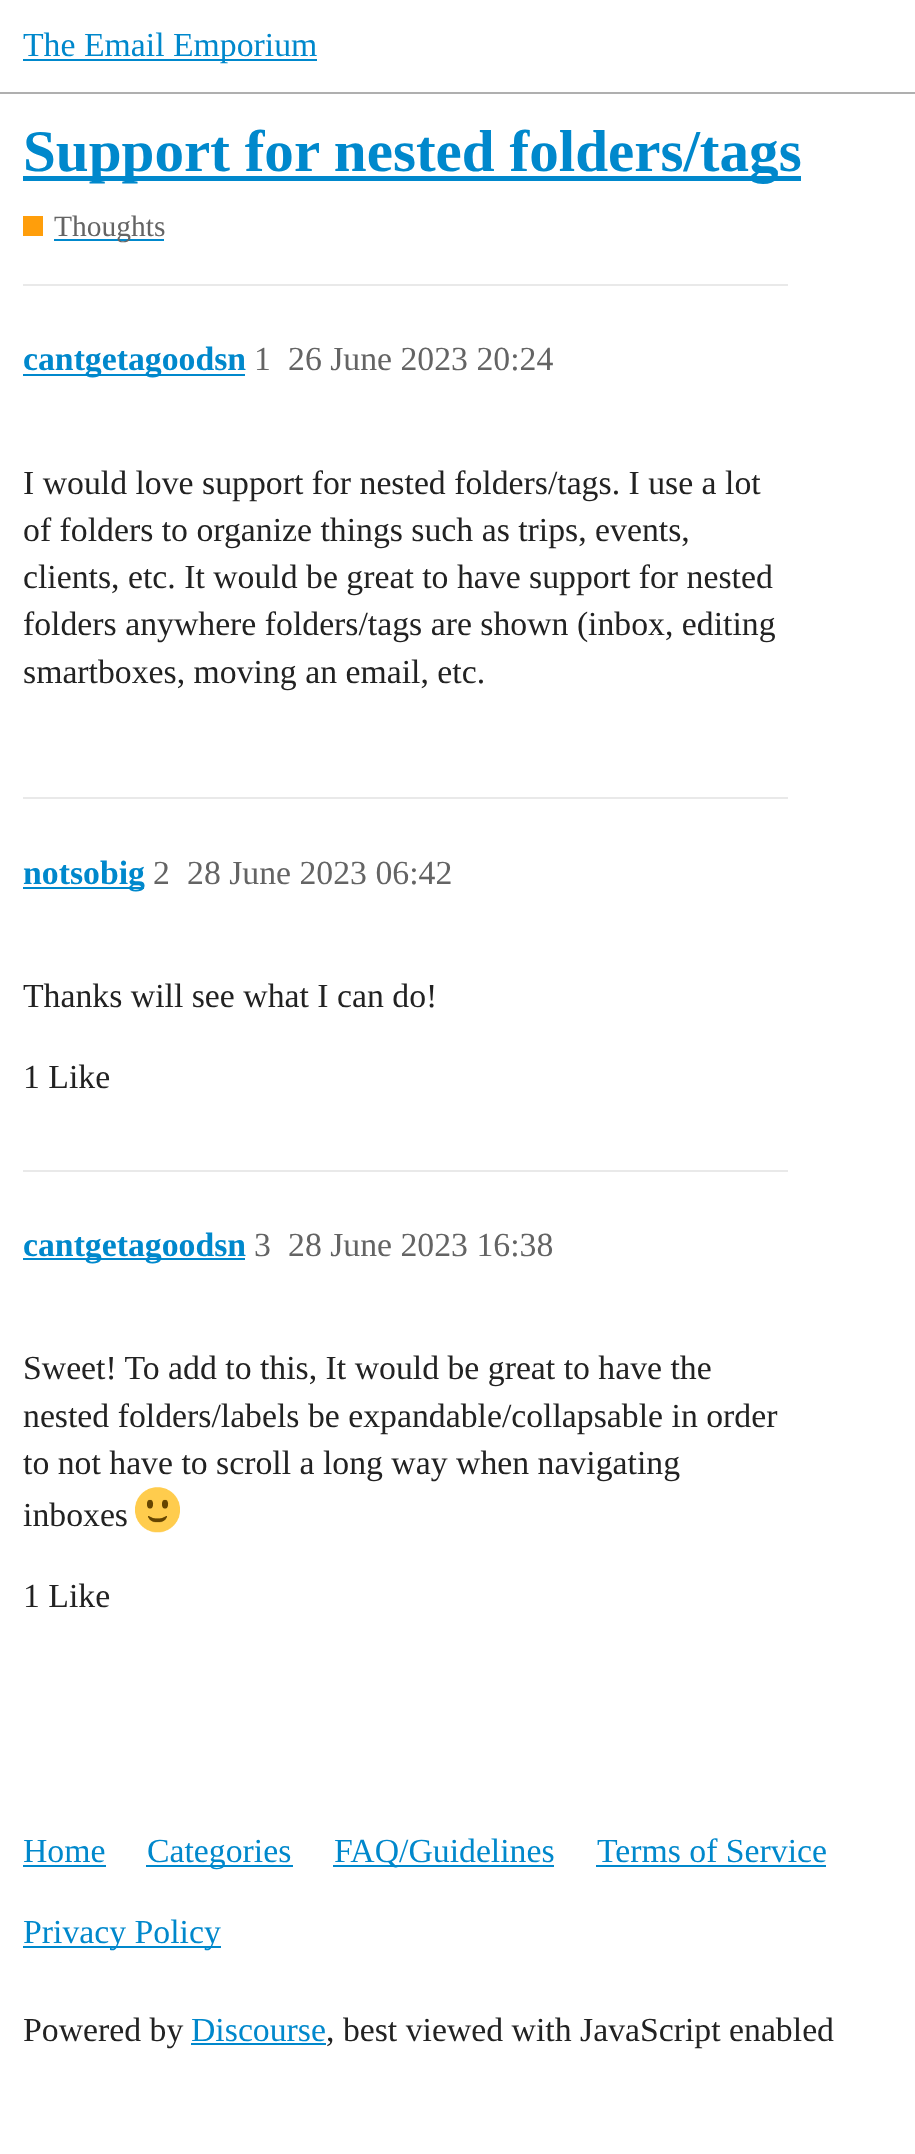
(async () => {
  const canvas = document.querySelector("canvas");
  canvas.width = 915;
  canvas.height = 2154;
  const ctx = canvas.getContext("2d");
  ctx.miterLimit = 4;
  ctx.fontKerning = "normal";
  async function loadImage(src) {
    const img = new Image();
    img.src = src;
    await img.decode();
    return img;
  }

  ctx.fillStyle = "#ffffff";
  ctx.fillRect(0, 0, 915, 2154);
  for (const [x, y, w, h, color] of [
    [0, 92, 915, 2, "#afafaf"],
    [23, 59, 294, 2, "#0088cc"],
    [23, 176, 778, 5, "#0088cc"],
    [23, 216, 20, 20, "#ff9e0b"],
    [54, 239, 110, 2, "#0088cc"],
    [23, 284, 765, 2, "#e9e9e9"],
    [23, 374, 222, 2, "#0088cc"],
    [23, 797, 765, 2, "#e9e9e9"],
    [23, 887, 121, 2, "#0088cc"],
    [23, 1170, 765, 2, "#e9e9e9"],
    [23, 1258, 222, 2, "#0088cc"],
  ]) {
    ctx.fillStyle = color;
    ctx.fillRect(x, y, w, h);
  }
  ctx.drawImage(await loadImage("img/1.png"), 135, 1487, 45, 46);
  for (const [x, y, w, h, color] of [
    [23, 1865, 83, 2, "#0088cc"],
    [146, 1865, 147, 2, "#0088cc"],
    [333, 1865, 221, 2, "#0088cc"],
    [596, 1865, 230, 2, "#0088cc"],
    [23, 1946, 198, 2, "#0088cc"],
    [191, 2043, 135, 2, "#0088cc"],
  ]) {
    ctx.fillStyle = color;
    ctx.fillRect(x, y, w, h);
  }
  ctx.font = "33.75px Liberation Serif";
  ctx.fillText("The Email Emporium", 23, 56);
  ctx.font = "bold 59.1px Liberation Serif";
  ctx.fillText("Support for nested folders/tags", 23, 171);
  ctx.font = "29.5px Liberation Serif";
  ctx.fillStyle = "#646464";
  ctx.fillText("Thoughts", 54, 236);
  ctx.font = "bold 33.75px Liberation Serif";
  ctx.fillStyle = "#0088cc";
  ctx.fillText("cantgetagoodsn", 23, 370);
  ctx.font = "33.75px Liberation Serif";
  ctx.fillStyle = "#646464";
  ctx.fillText("1", 254, 370);
  ctx.fillText("26 June 2023 20:24", 288, 370);
  ctx.fillStyle = "#222222";
  for (const [text, x, y] of [
    ["I would love support for nested folders/tags. I use a lot", 23, 494],
    ["of folders to organize things such as trips, events,", 23, 541],
    ["clients, etc. It would be great to have support for nested", 23, 588],
    ["folders anywhere folders/tags are shown (inbox, editing", 23, 635],
    ["smartboxes, moving an email, etc.", 23, 683],
  ]) {
    ctx.fillText(text, x, y);
  }
  ctx.font = "bold 33.75px Liberation Serif";
  ctx.fillStyle = "#0088cc";
  ctx.fillText("notsobig", 23, 884);
  ctx.font = "33.75px Liberation Serif";
  ctx.fillStyle = "#646464";
  ctx.fillText("2", 153, 884);
  ctx.fillText("28 June 2023 06:42", 187, 884);
  ctx.fillStyle = "#222222";
  ctx.fillText("Thanks will see what I can do!", 23, 1007);
  ctx.fillText("1 Like", 23, 1088);
  ctx.font = "bold 33.75px Liberation Serif";
  ctx.fillStyle = "#0088cc";
  ctx.fillText("cantgetagoodsn", 23, 1256);
  ctx.font = "33.75px Liberation Serif";
  ctx.fillStyle = "#646464";
  ctx.fillText("3", 254, 1256);
  ctx.fillText("28 June 2023 16:38", 288, 1256);
  ctx.fillStyle = "#222222";
  for (const [text, x, y] of [
    ["Sweet! To add to this, It would be great to have the", 23, 1379],
    ["nested folders/labels be expandable/collapsable in order", 23, 1427],
    ["to not have to scroll a long way when navigating", 23, 1474],
    ["inboxes", 23, 1526],
    ["1 Like", 23, 1607],
  ]) {
    ctx.fillText(text, x, y);
  }
  ctx.fillStyle = "#0088cc";
  for (const [text, x, y] of [
    ["Home", 23, 1862],
    ["Categories", 147, 1862],
    ["FAQ/Guidelines", 334, 1862],
    ["Terms of Service", 597, 1862],
    ["Privacy Policy", 23, 1943],
  ]) {
    ctx.fillText(text, x, y);
  }
  ctx.fillStyle = "#222222";
  ctx.fillText("Powered by", 23, 2041);
  ctx.fillStyle = "#0088cc";
  ctx.fillText("Discourse", 191, 2041);
  ctx.fillStyle = "#222222";
  ctx.fillText(", best viewed with JavaScript enabled", 326, 2041);
})();
